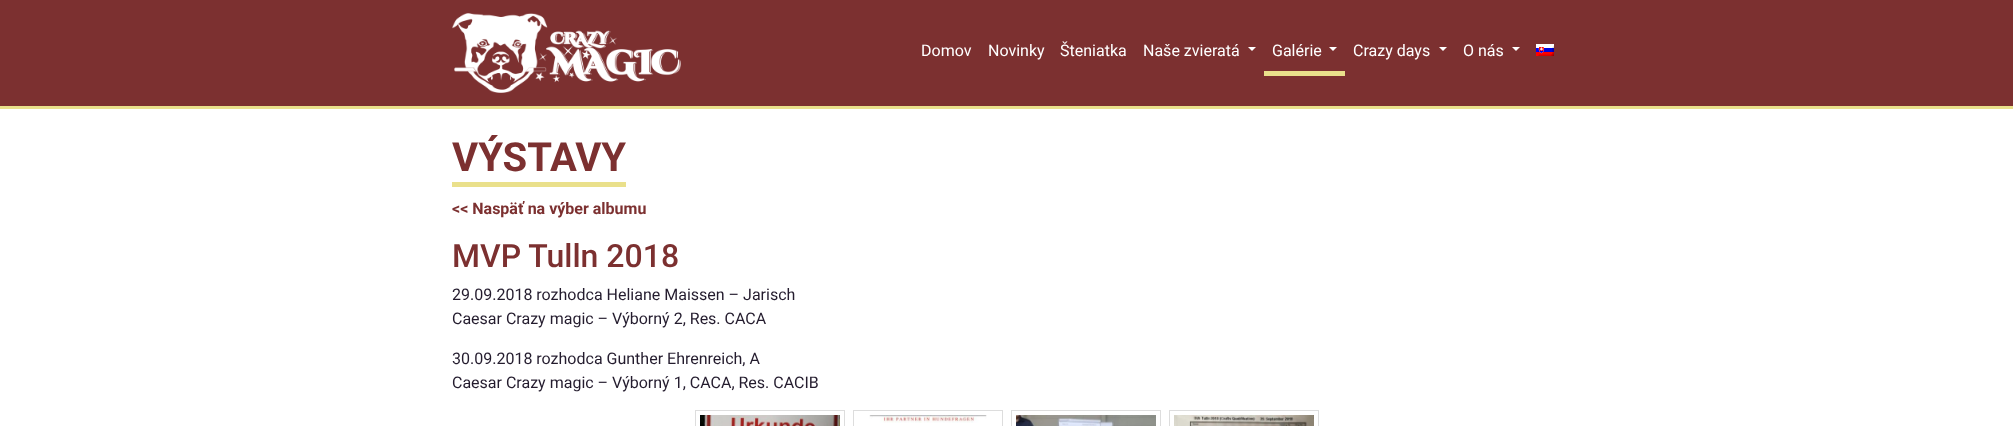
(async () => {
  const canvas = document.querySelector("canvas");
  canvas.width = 2013;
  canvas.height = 426;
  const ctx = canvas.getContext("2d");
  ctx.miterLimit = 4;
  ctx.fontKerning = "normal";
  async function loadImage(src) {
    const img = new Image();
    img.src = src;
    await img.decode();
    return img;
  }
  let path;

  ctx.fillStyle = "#ffffff";
  ctx.fillRect(0, 0, 2013, 426);
  ctx.fillStyle = "#7c3030";
  ctx.fillRect(0, 0, 2013, 106);
  ctx.fillStyle = "#eae08b";
  ctx.fillRect(0, 106, 2013, 3);
  ctx.drawImage(await loadImage("img/1.png"), 452, 13, 229, 80);
  ctx.fillStyle = "#ffffff";
  path = new Path2D("M1248 47H1256L1252 51Z");
  ctx.fill(path);
  ctx.fillStyle = "#eae08b";
  ctx.fillRect(1264, 71, 81, 5);
  ctx.fillStyle = "#ffffff";
  path = new Path2D("M1329 47H1337L1333 51Z");
  ctx.fill(path);
  path = new Path2D("M1439 47H1447L1443 51Z");
  ctx.fill(path);
  path = new Path2D("M1512 47H1520L1516 51Z");
  ctx.fill(path);
  ctx.drawImage(await loadImage("img/2.png"), 1536, 44, 18, 12);
  ctx.fillStyle = "#eae08b";
  ctx.fillRect(452, 182, 174, 5);
  ctx.strokeStyle = "#dddddd";
  ctx.strokeRect(695.5, 410.5, 149, 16);
  ctx.drawImage(await loadImage("img/3.png"), 700, 415, 140, 11);
  ctx.strokeRect(853.5, 410.5, 149, 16);
  ctx.drawImage(await loadImage("img/4.png"), 869, 415, 118, 8);
  ctx.strokeRect(1011.5, 410.5, 149, 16);
  ctx.drawImage(await loadImage("img/5.png"), 1016, 415, 140, 11);
  ctx.strokeRect(1169.5, 410.5, 149, 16);
  ctx.drawImage(await loadImage("img/6.png"), 1174, 415, 140, 11);
  ctx.font = "16px Roboto";
  ctx.fillStyle = "#ffffff";
  for (const [text, x, y] of [
    ["Domov", 921, 56],
    ["Novinky", 988, 56],
    ["Šteniatka", 1060, 56],
    ["Naše zvieratá", 1143, 56],
    ["Galérie", 1272, 56],
    ["Crazy days", 1353, 56],
    ["O nás", 1463, 56],
  ]) {
    ctx.fillText(text, x, y);
  }
  ctx.font = "bold 40px Roboto";
  ctx.fillStyle = "#7c3030";
  ctx.fillText("VÝSTAVY", 452, 171);
  ctx.font = "bold 16px Roboto";
  ctx.fillText("<< Naspäť na výber albumu", 452, 214);
  ctx.font = "500 32px Roboto";
  ctx.fillText("MVP Tulln 2018", 452, 267);
  ctx.font = "16px Roboto";
  ctx.fillStyle = "#241c2e";
  for (const [text, x, y] of [
    ["29.09.2018 rozhodca Heliane Maissen – Jarisch", 452, 300],
    ["Caesar Crazy magic – Výborný 2, Res. CACA", 452, 324],
    ["30.09.2018 rozhodca Gunther Ehrenreich, A", 452, 364],
    ["Caesar Crazy magic – Výborný 1, CACA, Res. CACIB", 452, 388],
  ]) {
    ctx.fillText(text, x, y);
  }
})();
